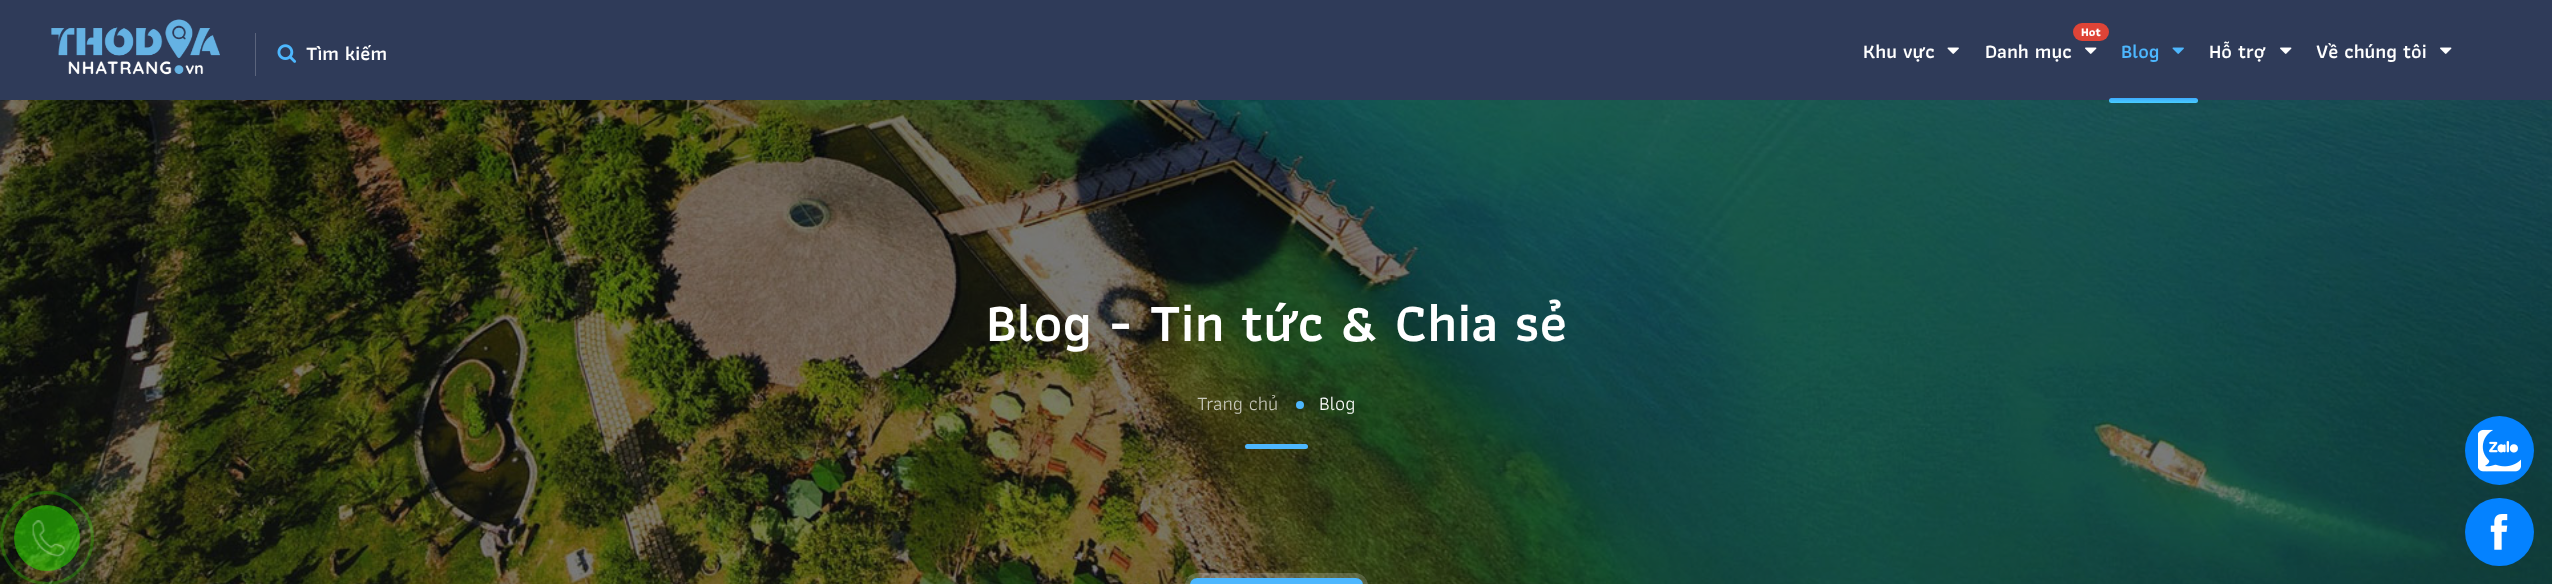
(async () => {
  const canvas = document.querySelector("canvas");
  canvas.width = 2552;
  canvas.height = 584;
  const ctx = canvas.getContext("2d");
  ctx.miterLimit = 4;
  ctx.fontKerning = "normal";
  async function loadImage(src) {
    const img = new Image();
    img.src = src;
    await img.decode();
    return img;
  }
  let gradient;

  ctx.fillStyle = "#2f3b59";
  ctx.fillRect(0, 0, 2552, 584);
  ctx.drawImage(await loadImage("img/1.png"), 51, 19, 169, 56);
  ctx.fillStyle = "#5b647c";
  ctx.fillRect(255, 33, 1, 43);
  ctx.drawImage(await loadImage("img/2.png"), 277, 44, 20, 19);
  ctx.drawImage(await loadImage("img/3.png"), 1947, 47, 12, 7);
  ctx.fillStyle = "#de4437";
  ctx.beginPath();
  ctx.roundRect(2073, 23, 36, 18, 9);
  ctx.fill();
  ctx.drawImage(await loadImage("img/4.png"), 2085, 47, 12, 7);
  ctx.drawImage(await loadImage("img/5.png"), 2172, 47, 12, 7);
  ctx.drawImage(await loadImage("img/6.png"), 0, 100, 2552, 484);
  gradient = ctx.createLinearGradient(2153, 98, 2153, 103);
  gradient.addColorStop(0, "#3eaafd");
  gradient.addColorStop(1, "#49ceff");
  ctx.fillStyle = gradient;
  ctx.beginPath();
  ctx.roundRect(2109, 98, 89, 5, 2.5);
  ctx.fill();
  ctx.drawImage(await loadImage("img/4.png"), 2280, 47, 12, 7);
  ctx.drawImage(await loadImage("img/4.png"), 2440, 47, 12, 7);
  ctx.fillStyle = "#4db7fe";
  ctx.beginPath();
  ctx.arc(1300, 405, 4, 0, Math.PI * 2);
  ctx.fill();
  ctx.beginPath();
  ctx.roundRect(1245, 444, 63, 5, 2.5);
  ctx.fill();
  ctx.beginPath();
  ctx.roundRect(1187.5, 575.5, 178, 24, 10.5);
  ctx.strokeStyle = "rgba(255, 255, 255, 0.2)";
  ctx.lineWidth = 5;
  ctx.stroke();
  ctx.beginPath();
  ctx.roundRect(1190, 578, 173, 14, 8);
  ctx.fill();
  ctx.fillStyle = "rgba(43, 208, 2, 0.6)";
  ctx.beginPath();
  ctx.arc(47, 538, 33, 0, Math.PI * 2);
  ctx.fill();
  ctx.drawImage(await loadImage("img/7.png"), 32, 520, 34, 37);
  ctx.beginPath();
  ctx.arc(47, 538, 45.5, 0, Math.PI * 2);
  ctx.strokeStyle = "rgba(43, 208, 2, 0.3)";
  ctx.lineWidth = 3;
  ctx.stroke();
  ctx.fillStyle = "#0482ff";
  ctx.beginPath();
  ctx.arc(2499.5, 450.5, 34.5, 0, Math.PI * 2);
  ctx.fill();
  ctx.drawImage(await loadImage("img/8.png"), 2478, 429, 43, 43);
  ctx.beginPath();
  ctx.roundRect(2465, 498, 69, 68, 34);
  ctx.fill();
  ctx.drawImage(await loadImage("img/9.png"), 2490, 514, 18, 36);
  ctx.font = "600 20px Athiti";
  ctx.fillStyle = "#ffffff";
  ctx.fillText("Tìm kiếm", 306, 60);
  ctx.fillText("Khu vực", 1863, 58);
  ctx.font = "bold 12px Athiti";
  ctx.fillText("Hot", 2081, 36);
  ctx.font = "600 20px Athiti";
  ctx.fillText("Danh mục", 1985, 58);
  ctx.fillStyle = "#4db7fe";
  ctx.fillText("Blog", 2121, 58);
  ctx.fillStyle = "#ffffff";
  ctx.fillText("Hỗ trợ", 2209, 58);
  ctx.fillText("Về chúng tôi", 2316, 58);
  ctx.font = "600 55px Athiti";
  ctx.fillText("Blog - Tin tức & Chia sẻ", 986, 341);
  ctx.font = "20px Athiti";
  ctx.fillStyle = "#c7c8bb";
  ctx.fillText("Trang chủ", 1197, 410);
  ctx.fillStyle = "#ffffff";
  ctx.fillText("Blog", 1319, 410);
})();
